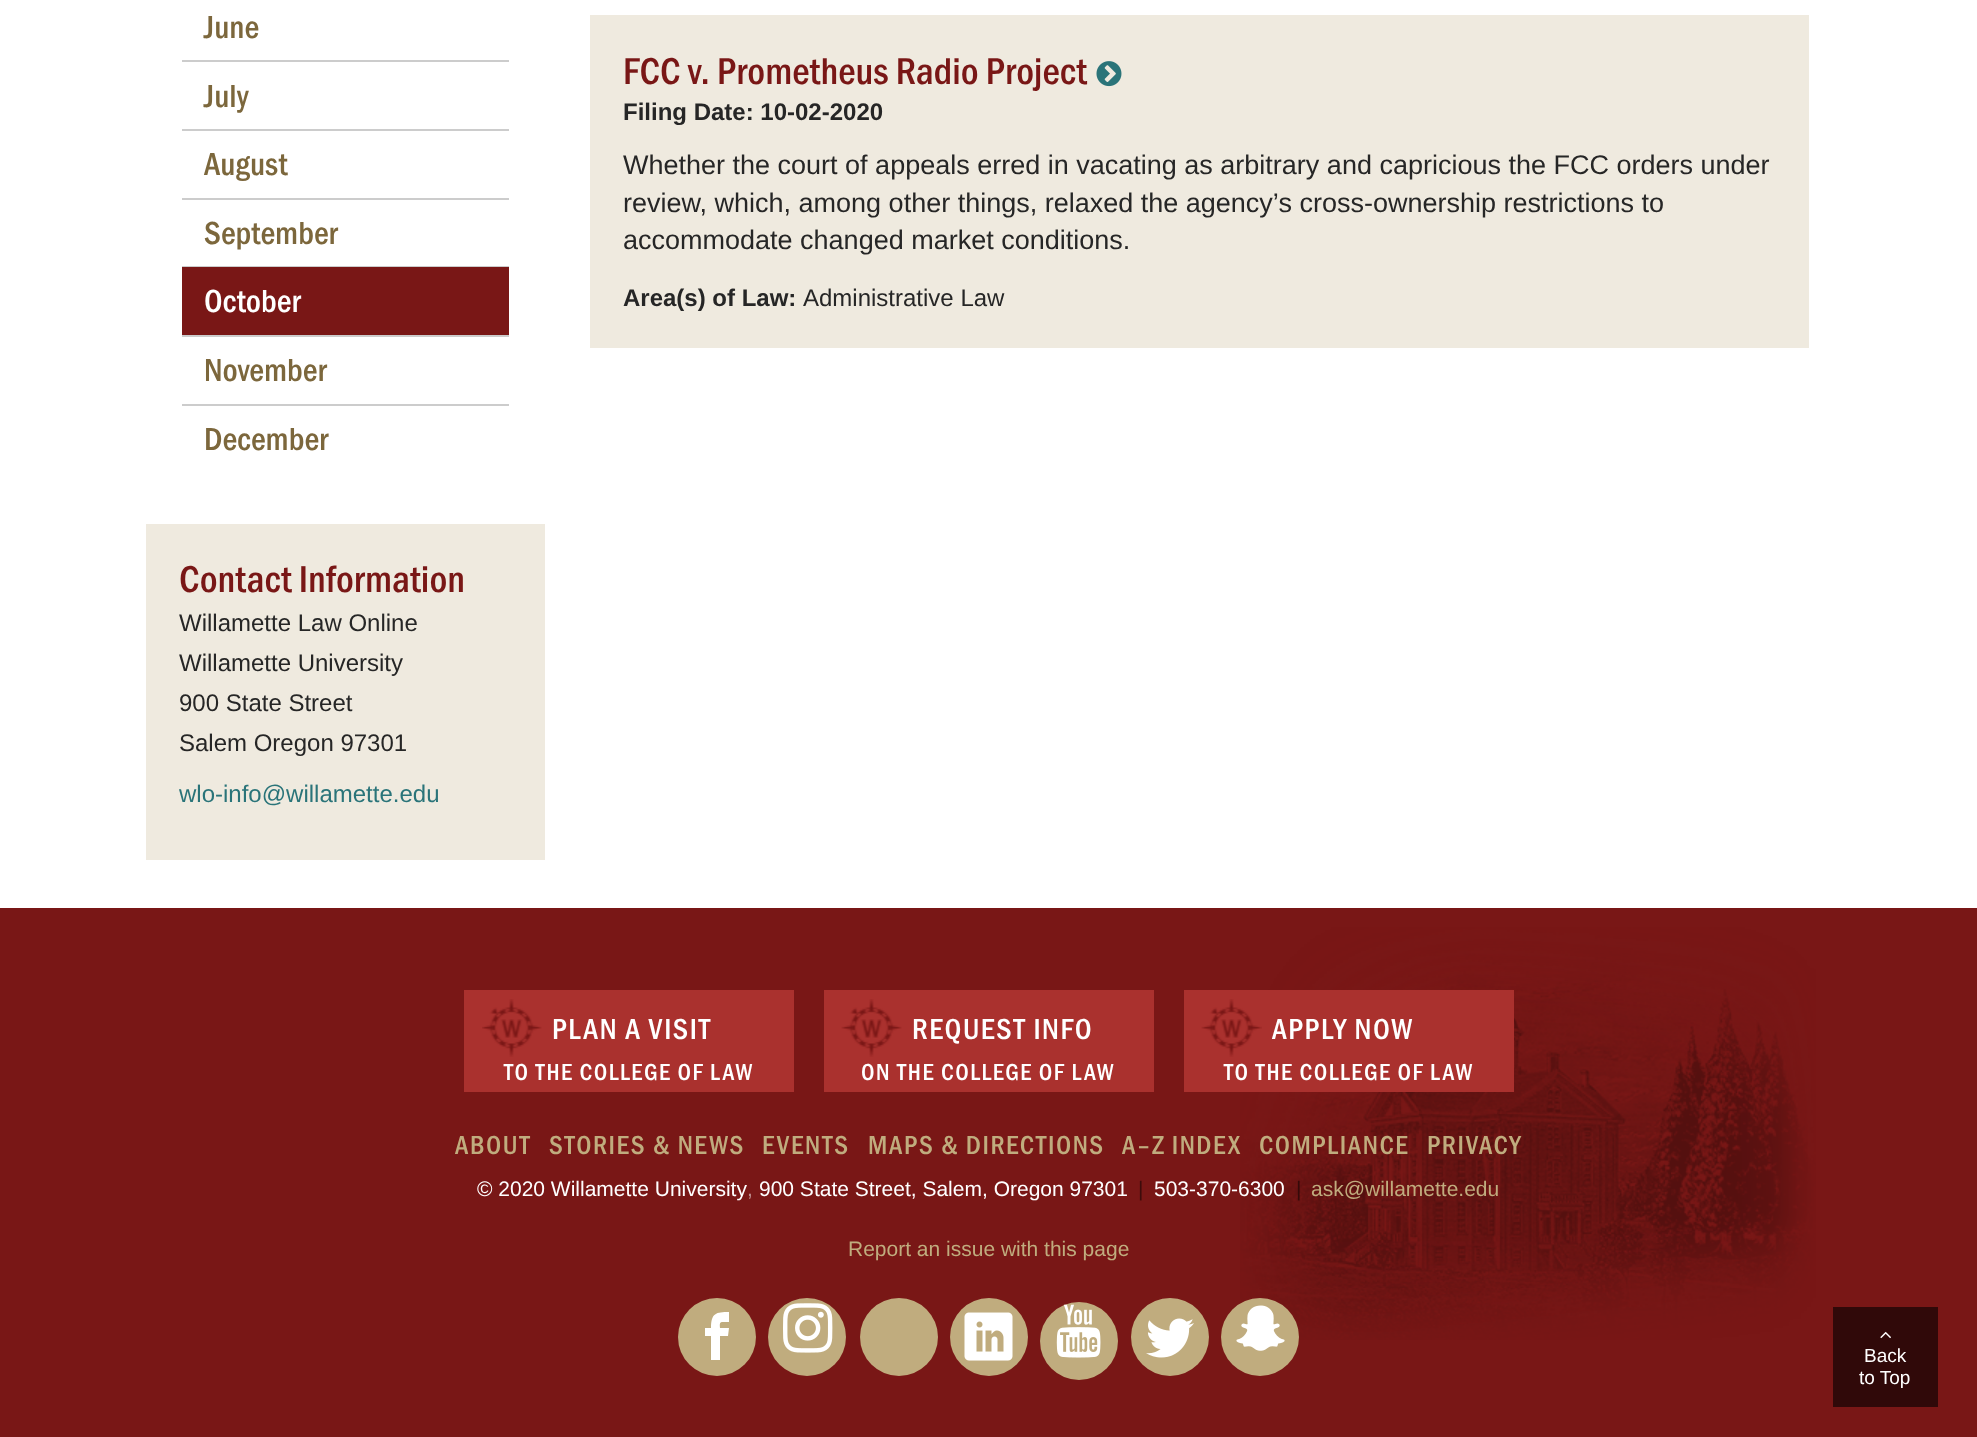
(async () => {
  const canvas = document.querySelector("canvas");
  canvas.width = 1977;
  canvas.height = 1437;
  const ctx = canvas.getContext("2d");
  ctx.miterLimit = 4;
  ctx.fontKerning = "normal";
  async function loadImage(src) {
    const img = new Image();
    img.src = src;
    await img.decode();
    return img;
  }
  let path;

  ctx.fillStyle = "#ffffff";
  ctx.fillRect(0, 0, 1977, 1437);
  for (const [x, y, w, h, color] of [
    [182, 60, 327, 2, "#cccccc"],
    [182, 129, 327, 2, "#cccccc"],
    [182, 198, 327, 2, "#cccccc"],
    [182, 266, 327, 1, "#cccccc"],
    [182, 335, 327, 2, "#cccccc"],
    [182, 267, 327, 68, "#791716"],
    [182, 404, 327, 2, "#cccccc"],
    [146, 524, 399, 336, "#efeadf"],
    [590, 15, 1219, 333, "#efeadf"],
  ]) {
    ctx.fillStyle = color;
    ctx.fillRect(x, y, w, h);
  }
  ctx.drawImage(await loadImage("img/1.png"), 1096, 61, 26, 26);
  ctx.fillStyle = "#791716";
  ctx.fillRect(0, 908, 1977, 529);
  ctx.drawImage(await loadImage("img/2.png"), 1240, 927, 576, 413);
  ctx.fillStyle = "#aa312e";
  ctx.fillRect(464, 990, 330, 102);
  ctx.drawImage(await loadImage("img/3.png"), 482, 999, 60, 58);
  ctx.fillRect(824, 990, 330, 102);
  ctx.drawImage(await loadImage("img/4.png"), 841, 999, 61, 58);
  ctx.fillRect(1184, 990, 330, 102);
  ctx.drawImage(await loadImage("img/5.png"), 1201, 999, 61, 58);
  ctx.fillStyle = "#c0ac7e";
  ctx.beginPath();
  ctx.arc(717, 1337, 39, 0, Math.PI * 2);
  ctx.fill();
  ctx.fillStyle = "#ffffff";
  path = new Path2D("M722 1322H729V1312C716 1312 711 1313 711 1328H705V1336H711V1360H720V1336H728L729 1328H720C720 1326 719 1322 722 1322Z");
  ctx.fill(path);
  ctx.fillStyle = "#c0ac7e";
  ctx.beginPath();
  ctx.arc(807, 1337, 39, 0, Math.PI * 2);
  ctx.fill();
  ctx.drawImage(await loadImage("img/6.png"), 783, 1303, 50, 50);
  ctx.beginPath();
  ctx.arc(899, 1337, 39, 0, Math.PI * 2);
  ctx.fill();
  ctx.beginPath();
  ctx.arc(989, 1337, 39, 0, Math.PI * 2);
  ctx.fill();
  ctx.drawImage(await loadImage("img/7.png"), 964, 1312, 49, 49);
  ctx.beginPath();
  ctx.arc(1079, 1341, 39, 0, Math.PI * 2);
  ctx.fill();
  ctx.drawImage(await loadImage("img/8.png"), 1056, 1304, 45, 54);
  ctx.beginPath();
  ctx.arc(1170, 1337, 39, 0, Math.PI * 2);
  ctx.fill();
  ctx.drawImage(await loadImage("img/9.png"), 1146, 1318, 48, 40);
  ctx.beginPath();
  ctx.arc(1260, 1337, 39, 0, Math.PI * 2);
  ctx.fill();
  ctx.drawImage(await loadImage("img/10.png"), 1236, 1305, 49, 46);
  ctx.fillStyle = "#300909";
  ctx.fillRect(1833, 1307, 105, 100);
  ctx.drawImage(await loadImage("img/11.png"), 1880, 1331, 11, 8);
  ctx.font = "500 33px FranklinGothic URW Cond";
  ctx.fillStyle = "#7c673c";
  for (const [text, x, y] of [
    ["June", 204, 38],
    ["July", 204, 107],
    ["August", 204, 175],
    ["September", 204, 244],
  ]) {
    ctx.fillText(text, x, y);
  }
  ctx.fillStyle = "#ffffff";
  ctx.fillText("October", 204, 312);
  ctx.fillStyle = "#7c673c";
  ctx.fillText("November", 204, 381);
  ctx.fillText("December", 204, 450);
  ctx.font = "500 38.75px FranklinGothic URW Cond";
  ctx.fillStyle = "#791716";
  ctx.fillText("Contact Information", 179, 592);
  ctx.font = "24px Liberation Sans";
  ctx.fillStyle = "#262626";
  for (const [text, x, y] of [
    ["Willamette Law Online", 179, 631],
    ["Willamette University", 179, 671],
    ["900 State Street", 179, 711],
    ["Salem Oregon 97301", 179, 751],
  ]) {
    ctx.fillText(text, x, y);
  }
  ctx.fillStyle = "#2a7479";
  ctx.fillText("wlo-info@willamette.edu", 179, 802);
  ctx.font = "500 38.75px FranklinGothic URW Cond";
  ctx.fillStyle = "#791716";
  ctx.fillText("FCC v. Prometheus Radio Project", 623, 84);
  ctx.font = "bold 24px Liberation Sans";
  ctx.fillStyle = "#262626";
  ctx.fillText("Filing Date: 10-02-2020", 623, 120);
  ctx.font = "27px Liberation Sans";
  for (const [text, x, y] of [
    ["Whether the court of appeals erred in vacating as arbitrary and capricious the FCC orders under", 623, 174],
    ["review, which, among other things, relaxed the agency’s cross-ownership restrictions to", 623, 212],
    ["accommodate changed market conditions.", 623, 249],
  ]) {
    ctx.fillText(text, x, y);
  }
  ctx.font = "bold 24px Liberation Sans";
  ctx.fillText("Area(s) of Law:", 623, 306);
  ctx.font = "24px Liberation Sans";
  ctx.fillText("Administrative Law", 803, 306);
  ctx.letterSpacing = "1.5px";
  ctx.font = "500 30px FranklinGothic URW Cond";
  ctx.fillStyle = "#ffffff";
  ctx.fillText("PLAN A VISIT", 552, 1039);
  ctx.font = "500 24px FranklinGothic URW Cond";
  ctx.fillText("TO THE COLLEGE OF LAW", 504, 1080);
  ctx.font = "500 30px FranklinGothic URW Cond";
  ctx.fillText("REQUEST INFO", 912, 1039);
  ctx.font = "500 24px FranklinGothic URW Cond";
  ctx.fillText("ON THE COLLEGE OF LAW", 861, 1080);
  ctx.font = "500 30px FranklinGothic URW Cond";
  ctx.fillText("APPLY NOW", 1272, 1039);
  ctx.font = "500 24px FranklinGothic URW Cond";
  ctx.fillText("TO THE COLLEGE OF LAW", 1224, 1080);
  ctx.font = "500 27px FranklinGothic URW Cond";
  ctx.fillStyle = "#c0ac7e";
  for (const [text, x, y] of [
    ["ABOUT", 455, 1154],
    ["STORIES & NEWS", 549, 1154],
    ["EVENTS", 762, 1154],
    ["MAPS & DIRECTIONS", 868, 1154],
    ["A–Z INDEX", 1122, 1154],
    ["COMPLIANCE", 1259, 1154],
    ["PRIVACY", 1427, 1154],
  ]) {
    ctx.fillText(text, x, y);
  }
  ctx.letterSpacing = "0px";
  ctx.font = "21px Liberation Sans";
  ctx.fillStyle = "#ffffff";
  ctx.fillText("© 2020 Willamette University", 477, 1196);
  ctx.fillStyle = "#bc8b8b";
  ctx.fillText(",", 747, 1196);
  ctx.fillStyle = "#ffffff";
  ctx.fillText("900 State Street, Salem, Oregon 97301", 759, 1196);
  ctx.fillStyle = "#3d0c0b";
  ctx.fillText("|", 1138, 1196);
  ctx.fillStyle = "#ffffff";
  ctx.fillText("503-370-6300", 1154, 1196);
  ctx.fillStyle = "#350a09";
  ctx.fillText("|", 1296, 1196);
  ctx.fillStyle = "#c0ac7e";
  ctx.fillText("ask@willamette.edu", 1311, 1196);
  ctx.fillText("Report an issue with this page", 848, 1256);
  ctx.font = "19px Liberation Sans";
  ctx.fillStyle = "#ffffff";
  ctx.fillText("Back", 1864, 1362);
  ctx.fillText("to Top", 1859, 1384);
})();
